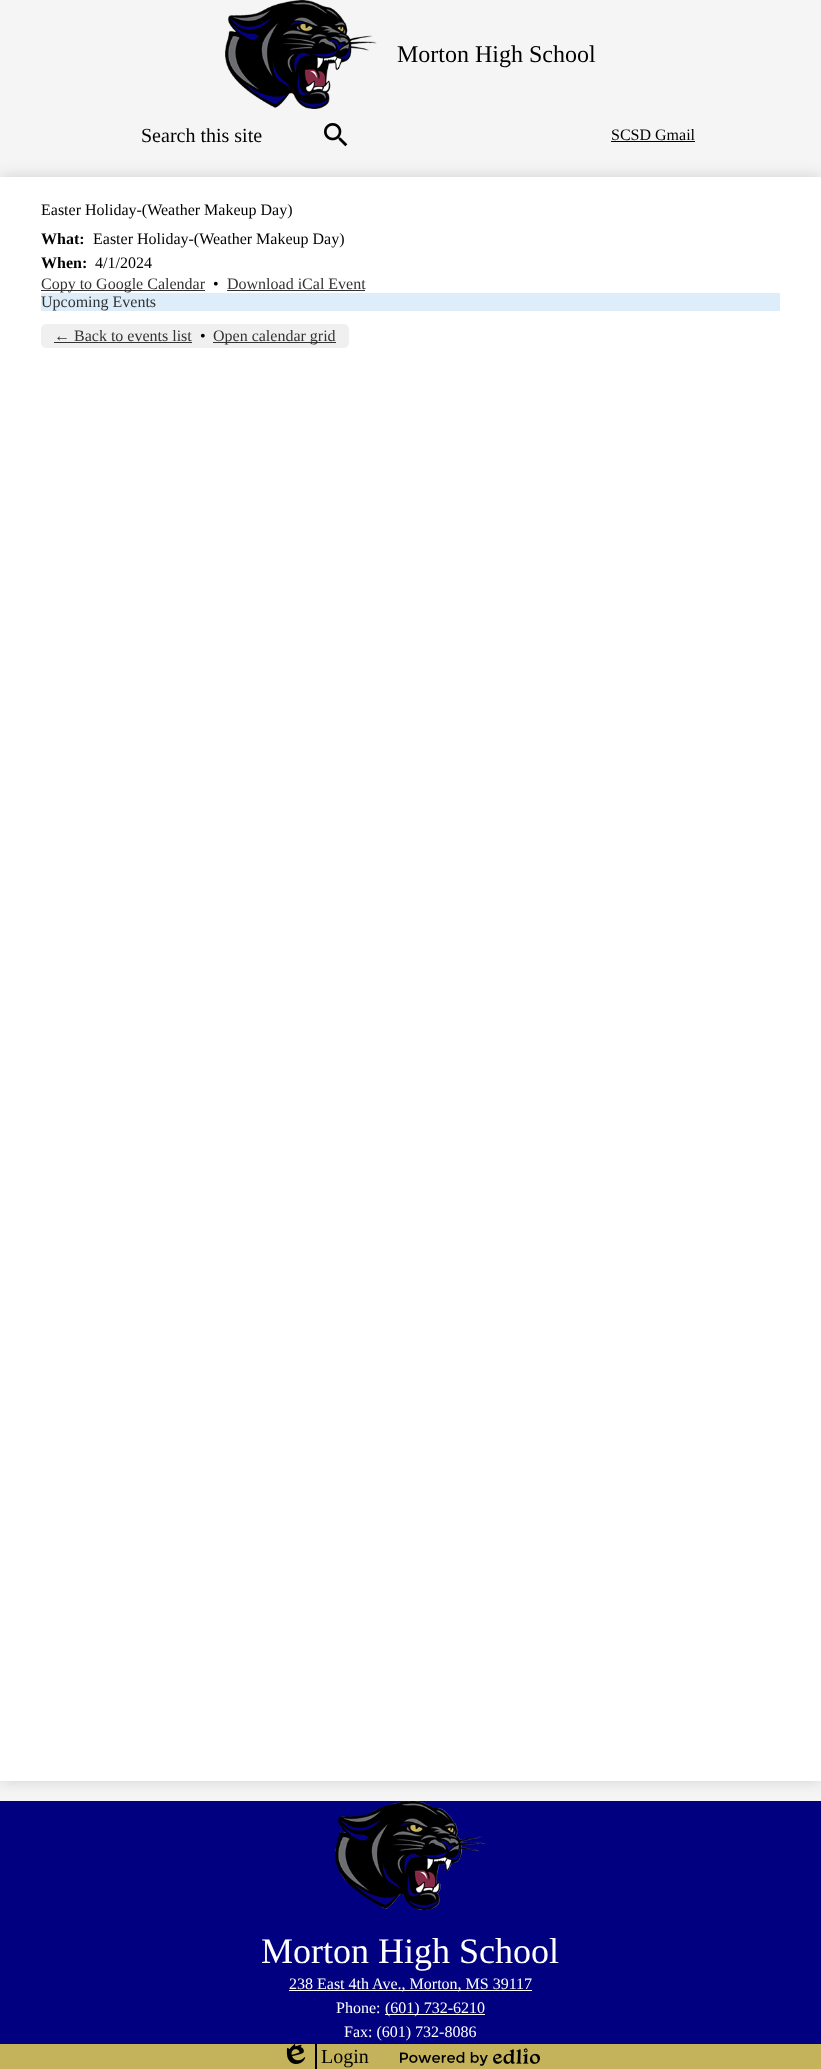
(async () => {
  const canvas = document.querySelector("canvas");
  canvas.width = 821;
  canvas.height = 2069;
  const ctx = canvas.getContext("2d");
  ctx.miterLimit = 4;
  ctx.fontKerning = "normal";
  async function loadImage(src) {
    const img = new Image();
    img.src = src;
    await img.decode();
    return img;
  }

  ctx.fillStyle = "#f5f5f5";
  ctx.fillRect(0, 0, 821, 2069);
  ctx.drawImage(await loadImage("img/1.png"), 225, 0, 152, 109);
  ctx.drawImage(await loadImage("img/2.png"), 324, 123, 24, 24);
  ctx.fillStyle = "#000000";
  ctx.fillRect(611, 141, 84, 1);
  ctx.fillStyle = "#000080";
  ctx.fillRect(0, 1801, 821, 243);
  ctx.drawImage(await loadImage("img/3.png"), 335, 1801, 152, 109);
  ctx.fillStyle = "rgba(0, 0, 0, 0.15)";
  ctx.filter = "blur(8px)";
  ctx.beginPath();
  ctx.rect(0, 177, 821, 1604);
  ctx.fill();
  ctx.filter = "none";
  for (const [x, y, w, h, color] of [
    [0, 177, 821, 1604, "#ffffff"],
    [41, 290, 164, 1, "#333333"],
    [227, 290, 138, 1, "#333333"],
    [41, 293, 739, 18, "#ddeefa"],
  ]) {
    ctx.fillStyle = color;
    ctx.fillRect(x, y, w, h);
  }
  ctx.fillStyle = "#f0f0f0";
  ctx.beginPath();
  ctx.roundRect(41, 324, 308, 24, 5);
  ctx.fill();
  for (const [x, y, w, h, color] of [
    [54, 342, 138, 1, "#333333"],
    [213, 342, 123, 1, "#333333"],
    [289, 1990, 243, 1, "#ffffff"],
    [385, 2014, 100, 1, "#ffffff"],
    [0, 2044, 821, 25, "#c5b35b"],
    [315, 2044, 2, 25, "#000000"],
  ]) {
    ctx.fillStyle = color;
    ctx.fillRect(x, y, w, h);
  }
  ctx.drawImage(await loadImage("img/4.png"), 286, 2044, 20, 20);
  ctx.drawImage(await loadImage("img/5.png"), 400, 2048, 140, 18);
  ctx.font = "24px Liberation Serif";
  ctx.fillText("Morton High School", 397, 62);
  ctx.font = "20px Liberation Serif";
  ctx.fillText("Search this site", 141, 142);
  ctx.font = "16px Liberation Serif";
  ctx.fillText("SCSD Gmail", 611, 140);
  ctx.fillText("Easter Holiday-(Weather Makeup Day)", 41, 215);
  ctx.font = "bold 16px Liberation Serif";
  ctx.fillText("What:", 41, 244);
  ctx.font = "16px Liberation Serif";
  ctx.fillText("Easter Holiday-(Weather Makeup Day)", 93, 244);
  ctx.font = "bold 16px Liberation Serif";
  ctx.fillText("When:", 41, 268);
  ctx.font = "16px Liberation Serif";
  ctx.fillText("4/1/2024", 95, 268);
  ctx.fillStyle = "#333333";
  ctx.fillText("Copy to Google Calendar", 41, 289);
  ctx.fillStyle = "#000000";
  ctx.fillText("•", 213, 289);
  ctx.fillStyle = "#333333";
  for (const [text, x, y] of [
    ["Download iCal Event", 227, 289],
    ["Upcoming Events", 41, 307],
    ["← Back to events list", 54, 341],
  ]) {
    ctx.fillText(text, x, y);
  }
  ctx.fillStyle = "#000000";
  ctx.fillText("•", 200, 341);
  ctx.fillStyle = "#333333";
  ctx.fillText("Open calendar grid", 213, 341);
  ctx.font = "36px Liberation Serif";
  ctx.fillStyle = "#ffffff";
  ctx.fillText("Morton High School", 261, 1963);
  ctx.font = "16px Liberation Serif";
  for (const [text, x, y] of [
    ["238 East 4th Ave., Morton, MS 39117", 289, 1989],
    ["Phone:", 336, 2013],
    ["(601) 732-6210", 385, 2013],
    ["Fax: (601) 732-8086", 344, 2037],
  ]) {
    ctx.fillText(text, x, y);
  }
  ctx.font = "20px Liberation Serif";
  ctx.fillStyle = "#000000";
  ctx.fillText("Login", 321, 2063);
})();
